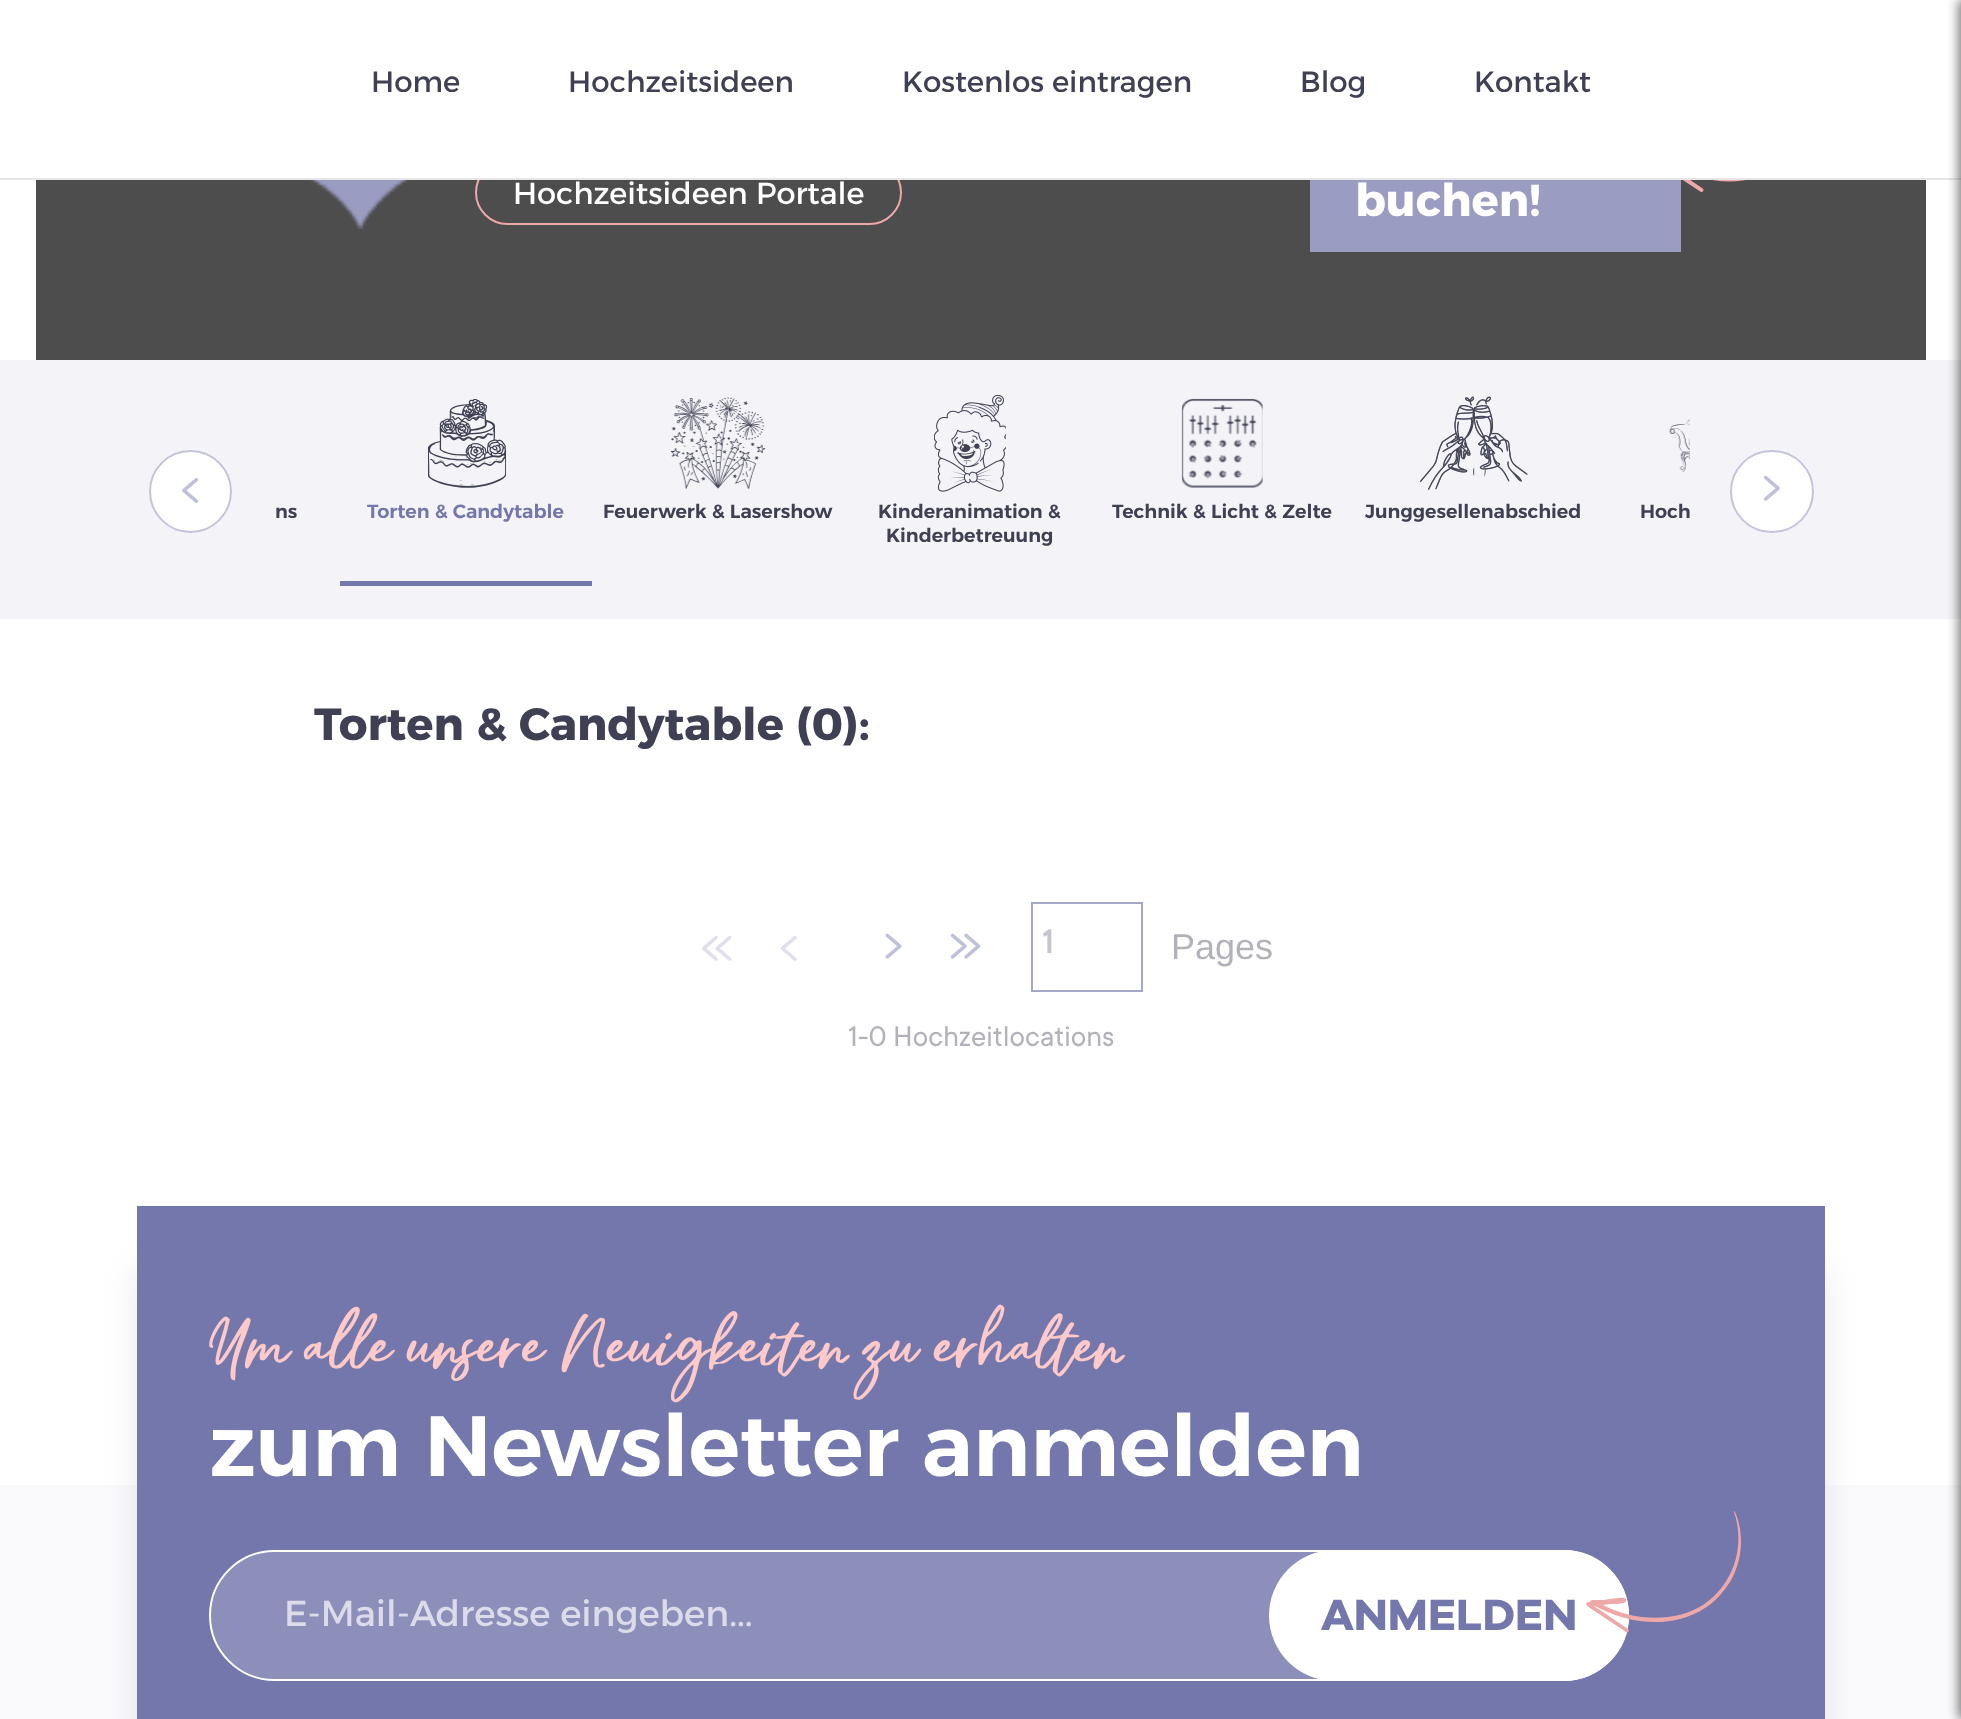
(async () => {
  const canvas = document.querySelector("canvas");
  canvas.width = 1961;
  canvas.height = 1719;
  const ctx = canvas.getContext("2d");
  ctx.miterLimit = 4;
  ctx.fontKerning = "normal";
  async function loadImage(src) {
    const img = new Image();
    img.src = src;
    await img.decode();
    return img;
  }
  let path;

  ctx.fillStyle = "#ffffff";
  ctx.fillRect(0, 0, 1961, 1719);
  ctx.fillStyle = "#4d4d4d";
  ctx.fillRect(36, 180, 1890, 180);
  ctx.beginPath();
  ctx.roundRect(476, 161, 425, 63, 31.5);
  ctx.strokeStyle = "#efa8a8";
  ctx.lineWidth = 2;
  ctx.stroke();
  ctx.fillStyle = "#9a9cc2";
  ctx.fillRect(1310, 180, 371, 72);
  ctx.fillStyle = "#efa8a8";
  path = new Path2D("M1780 167C1810 147 1824 105 1810 71H1809C1808 71 1807 71 1808 72C1820 106 1807 145 1777 164C1748 183 1709 180 1677 164H1687L1695 163C1696 162 1705 159 1699 157C1697 157 1693 157 1691 158L1685 159H1676H1666L1665 161C1657 162 1660 165 1666 169L1701 192C1703 192 1705 190 1702 188L1668 165H1670C1704 185 1748 188 1780 167Z");
  ctx.fill(path);
  for (const [x, y, w, h, color] of [
    [478, 71, 1338, 107, "#ffffff"],
    [0, 178, 1961, 2, "#e6e6e6"],
    [0, 360, 1961, 259, "#f4f4f8"],
  ]) {
    ctx.fillStyle = color;
    ctx.fillRect(x, y, w, h);
  }
  ctx.fillStyle = "rgba(0, 0, 0, 0.09)";
  ctx.filter = "blur(17px)";
  ctx.beginPath();
  ctx.rect(137, 1271, 1688, 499);
  ctx.fill();
  ctx.filter = "none";
  ctx.fillStyle = "#7477ac";
  ctx.fillRect(137, 1206, 1688, 513);
  ctx.fillStyle = "rgba(116, 119, 172, 0.04)";
  ctx.fillRect(0, 1485, 1961, 234);
  ctx.fillStyle = "rgba(0, 0, 0, 0.5)";
  ctx.filter = "blur(5.5px)";
  ctx.beginPath();
  ctx.rect(1958, 0, 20, 1719);
  ctx.fill();
  ctx.filter = "none";
  ctx.drawImage(await loadImage("img/1.png"), 310, 180, 99, 49);
  ctx.fillStyle = "#ffffff";
  ctx.beginPath();
  ctx.arc(190.5, 491.5, 41.5, 0, Math.PI * 2);
  ctx.fill();
  ctx.beginPath();
  ctx.arc(190.5, 491.5, 40.5, 0, Math.PI * 2);
  ctx.strokeStyle = "rgba(116, 119, 172, 0.43)";
  ctx.stroke();
  ctx.drawImage(await loadImage("img/2.png"), 182, 478, 17, 25);
  ctx.drawImage(await loadImage("img/3.png"), 428, 399, 78, 89);
  ctx.fillStyle = "#7477ac";
  ctx.fillRect(340, 581, 252, 5);
  ctx.drawImage(await loadImage("img/4.png"), 671, 397, 95, 92);
  ctx.drawImage(await loadImage("img/5.png"), 934, 395, 72, 97);
  ctx.drawImage(await loadImage("img/6.png"), 1181, 398, 82, 90);
  ctx.drawImage(await loadImage("img/7.png"), 1420, 396, 108, 94);
  ctx.drawImage(await loadImage("img/8.png"), 1669, 419, 21, 53);
  ctx.fillStyle = "#ffffff";
  ctx.beginPath();
  ctx.roundRect(1730, 450, 84, 83, 41.5);
  ctx.fill();
  ctx.beginPath();
  ctx.roundRect(1731, 451, 82, 81, 40.5);
  ctx.stroke();
  ctx.drawImage(await loadImage("img/9.png"), 1763, 475, 17, 26);
  ctx.drawImage(await loadImage("img/10.png"), 701, 936, 31, 25);
  ctx.drawImage(await loadImage("img/11.png"), 780, 936, 17, 25);
  ctx.drawImage(await loadImage("img/12.png"), 885, 933, 17, 26);
  ctx.drawImage(await loadImage("img/13.png"), 950, 933, 31, 26);
  ctx.strokeStyle = "#a5a7c9";
  ctx.strokeRect(1032, 903, 110, 88);
  ctx.fillStyle = "#8d8fbb";
  ctx.beginPath();
  ctx.roundRect(210, 1551, 1418, 129, 64.5);
  ctx.fill();
  ctx.strokeStyle = "#ffffff";
  ctx.stroke();
  ctx.fillStyle = "#ffffff";
  ctx.beginPath();
  ctx.roundRect(1269, 1550, 360, 131, 65.5);
  ctx.fill();
  ctx.fillStyle = "#efa8a8";
  path = new Path2D("M1705 1608C1713 1603 1720 1596 1725 1589L1730 1582C1742 1562 1745 1535 1735 1512C1735 1511 1733 1511 1734 1512C1746 1547 1733 1585 1703 1605C1674 1623 1634 1621 1603 1605L1609 1604C1614 1604 1619 1604 1624 1603C1625 1602 1626 1602 1626 1600C1627 1597 1620 1598 1618 1598L1603 1600H1592C1591 1600 1590 1601 1590 1602C1588 1602 1587 1602 1586 1604C1586 1605 1588 1606 1590 1608L1626 1632C1628 1634 1630 1630 1628 1629L1594 1606H1595C1629 1625 1673 1629 1705 1608Z");
  ctx.fill(path);
  ctx.font = "29.25px Alexandria";
  ctx.fillStyle = "#3f4053";
  for (const [text, x, y] of [
    ["Home", 371, 92],
    ["Hochzeitsideen", 568, 92],
    ["Kostenlos eintragen", 902, 92],
    ["Blog", 1300, 92],
    ["Kontakt", 1474, 92],
  ]) {
    ctx.fillText(text, x, y);
  }
  ctx.font = "30.4px Alexandria";
  ctx.fillStyle = "#ffffff";
  ctx.fillText("Hochzeitsideen Portale", 513, 204);
  ctx.font = "bold 45px Alexandria";
  ctx.fillText("buchen!", 1355, 216);
  ctx.font = "600 19.1px Alexandria";
  ctx.fillStyle = "#3f4053";
  ctx.fillText("ns", 275, 518);
  ctx.fillStyle = "#7477ac";
  ctx.fillText("Torten & Candytable", 367, 518);
  ctx.fillStyle = "#3f4053";
  for (const [text, x, y] of [
    ["Feuerwerk & Lasershow", 603, 518],
    ["Kinderanimation &", 878, 518],
    ["Kinderbetreuung", 886, 542],
    ["Technik & Licht & Zelte", 1112, 518],
    ["Junggesellenabschied", 1365, 518],
  ]) {
    ctx.fillText(text, x, y);
  }
  ctx.save();
  ctx.beginPath();
  ctx.rect(272, 360, 1418, 259);
  ctx.clip();
  ctx.fillText("Hoch", 1640, 518);
  ctx.restore();
  ctx.font = "bold 45px Alexandria";
  ctx.fillText("Torten & Candytable (0):", 314, 740);
  ctx.font = "bold 36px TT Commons";
  ctx.fillStyle = "#c5c6cb";
  ctx.fillText("1", 1042, 953);
  ctx.font = "36px Liberation Sans";
  ctx.fillStyle = "#b2b2ba";
  ctx.fillText("Pages", 1171, 959);
  ctx.font = "31.5px TT Commons";
  ctx.fillText("1-0 Hochzeitlocations", 848, 1046);
  ctx.font = "45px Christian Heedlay";
  ctx.fillStyle = "#fdc9c9";
  ctx.fillText("Um alle unsere Neuigkeiten zu erhalten", 209, 1359);
  ctx.font = "600 85.5px Alexandria";
  ctx.fillStyle = "#ffffff";
  ctx.fillText("zum Newsletter anmelden", 209, 1476);
  ctx.font = "36px Alexandria";
  ctx.fillStyle = "#dbdbe9";
  ctx.fillText("E-Mail-Adresse eingeben...", 284, 1626);
  ctx.font = "bold 45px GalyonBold";
  ctx.fillStyle = "#7477ac";
  ctx.fillText("ANMELDEN", 1321, 1630);
})();
